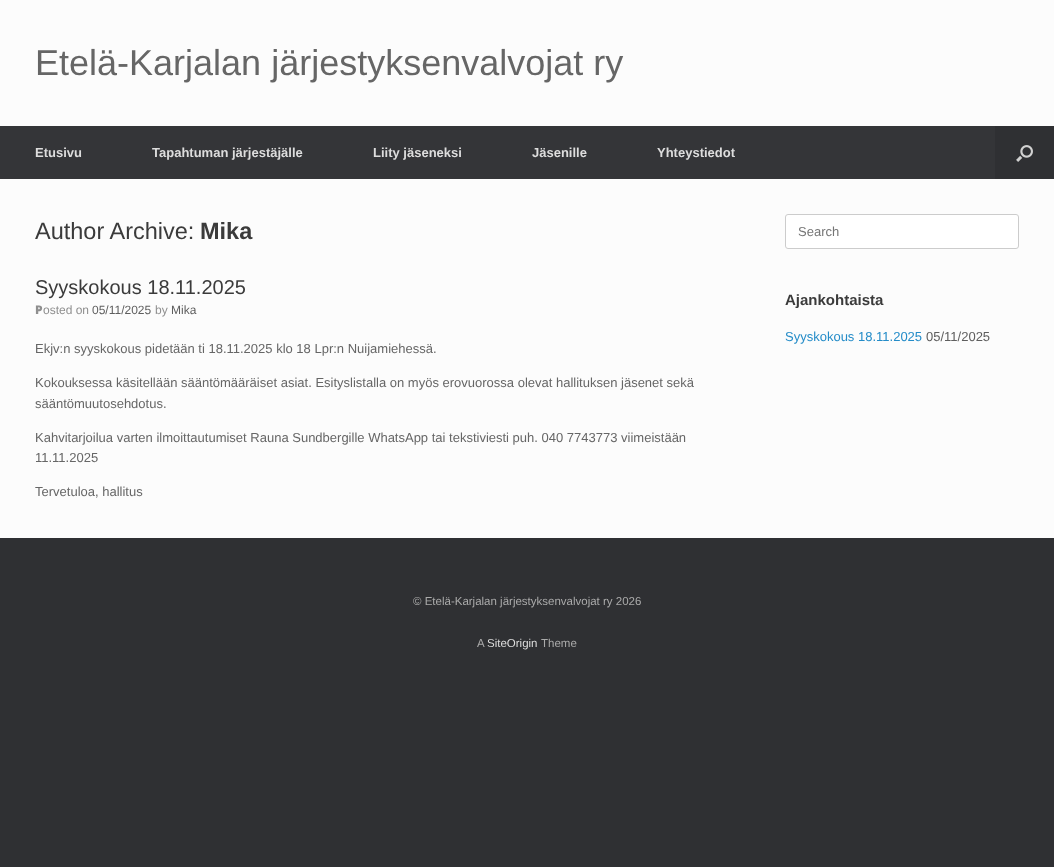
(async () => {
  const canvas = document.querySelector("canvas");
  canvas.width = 1054;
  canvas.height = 867;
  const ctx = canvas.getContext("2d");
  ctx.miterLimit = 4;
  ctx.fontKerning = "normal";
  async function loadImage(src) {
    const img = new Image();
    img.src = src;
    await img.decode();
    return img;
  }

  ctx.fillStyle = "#2f3033";
  ctx.fillRect(0, 0, 1054, 867);
  ctx.fillStyle = "#fcfcfc";
  ctx.fillRect(0, 0, 1054, 126);
  ctx.fillStyle = "#343538";
  ctx.fillRect(0, 126, 995, 53);
  ctx.drawImage(await loadImage("img/1.png"), 1016, 145, 17, 17);
  ctx.fillStyle = "#fcfcfc";
  ctx.fillRect(0, 179, 1054, 359);
  ctx.fillStyle = "#ffffff";
  ctx.beginPath();
  ctx.roundRect(785.5, 214.5, 233, 34, 2.5);
  ctx.fill();
  ctx.strokeStyle = "#cccccc";
  ctx.stroke();
  ctx.font = "36px Liberation Sans";
  ctx.fillStyle = "#666666";
  ctx.fillText("Etelä-Karjalan järjestyksenvalvojat ry", 35, 75);
  ctx.font = "bold 13px Liberation Sans";
  ctx.fillStyle = "#dddddd";
  for (const [text, x, y] of [
    ["Etusivu", 35, 157],
    ["Tapahtuman järjestäjälle", 152, 157],
    ["Liity jäseneksi", 373, 157],
    ["Jäsenille", 532, 157],
    ["Yhteystiedot", 657, 157],
  ]) {
    ctx.fillText(text, x, y);
  }
  ctx.font = "23.5px Liberation Sans";
  ctx.fillStyle = "#3b3b3b";
  ctx.fillText("Author Archive:", 35, 239);
  ctx.font = "bold 23.5px Liberation Sans";
  ctx.fillText("Mika", 200, 239);
  ctx.font = "20px Liberation Sans";
  ctx.fillText("Syyskokous 18.11.2025", 35, 294);
  ctx.font = "900 12px Noto Sans";
  ctx.fillStyle = "#8f8f8f";
  ctx.fillText("P", 35, 314);
  ctx.font = "12px Liberation Sans";
  ctx.fillText("osted on", 43, 314);
  ctx.fillStyle = "#5e5e5e";
  ctx.fillText("05/11/2025", 92, 314);
  ctx.fillStyle = "#8f8f8f";
  ctx.fillText("by", 155, 314);
  ctx.fillStyle = "#5e5e5e";
  ctx.fillText("Mika", 171, 314);
  ctx.font = "13px Liberation Sans";
  ctx.fillStyle = "#666666";
  for (const [text, x, y] of [
    ["Ekjv:n syyskokous pidetään ti 18.11.2025 klo 18 Lpr:n Nuijamiehessä.", 35, 353],
    ["Kokouksessa käsitellään sääntömääräiset asiat. Esityslistalla on myös erovuorossa olevat hallituksen jäsenet sekä", 35, 387],
    ["sääntömuutosehdotus.", 35, 408],
    ["Kahvitarjoilua varten ilmoittautumiset Rauna Sundbergille WhatsApp tai tekstiviesti puh. 040 7743773 viimeistään", 35, 442],
    ["11.11.2025", 35, 462],
    ["Tervetuloa, hallitus", 35, 496],
  ]) {
    ctx.fillText(text, x, y);
  }
  ctx.fillStyle = "#757575";
  ctx.fillText("Search", 798, 236);
  ctx.font = "bold 15px Liberation Sans";
  ctx.fillStyle = "#3b3b3b";
  ctx.fillText("Ajankohtaista", 785, 305);
  ctx.font = "13px Liberation Sans";
  ctx.fillStyle = "#248cc8";
  ctx.fillText("Syyskokous 18.11.2025", 785, 341);
  ctx.fillStyle = "#5e5e5e";
  ctx.fillText("05/11/2025", 926, 341);
  ctx.font = "11.5px Liberation Sans";
  ctx.fillStyle = "#aaaaaa";
  ctx.fillText("© Etelä-Karjalan järjestyksenvalvojat ry 2026", 413, 605);
  ctx.fillText("A", 477, 647);
  ctx.fillStyle = "#dddddd";
  ctx.fillText("SiteOrigin", 487, 647);
  ctx.fillStyle = "#aaaaaa";
  ctx.fillText("Theme", 541, 647);
})();
